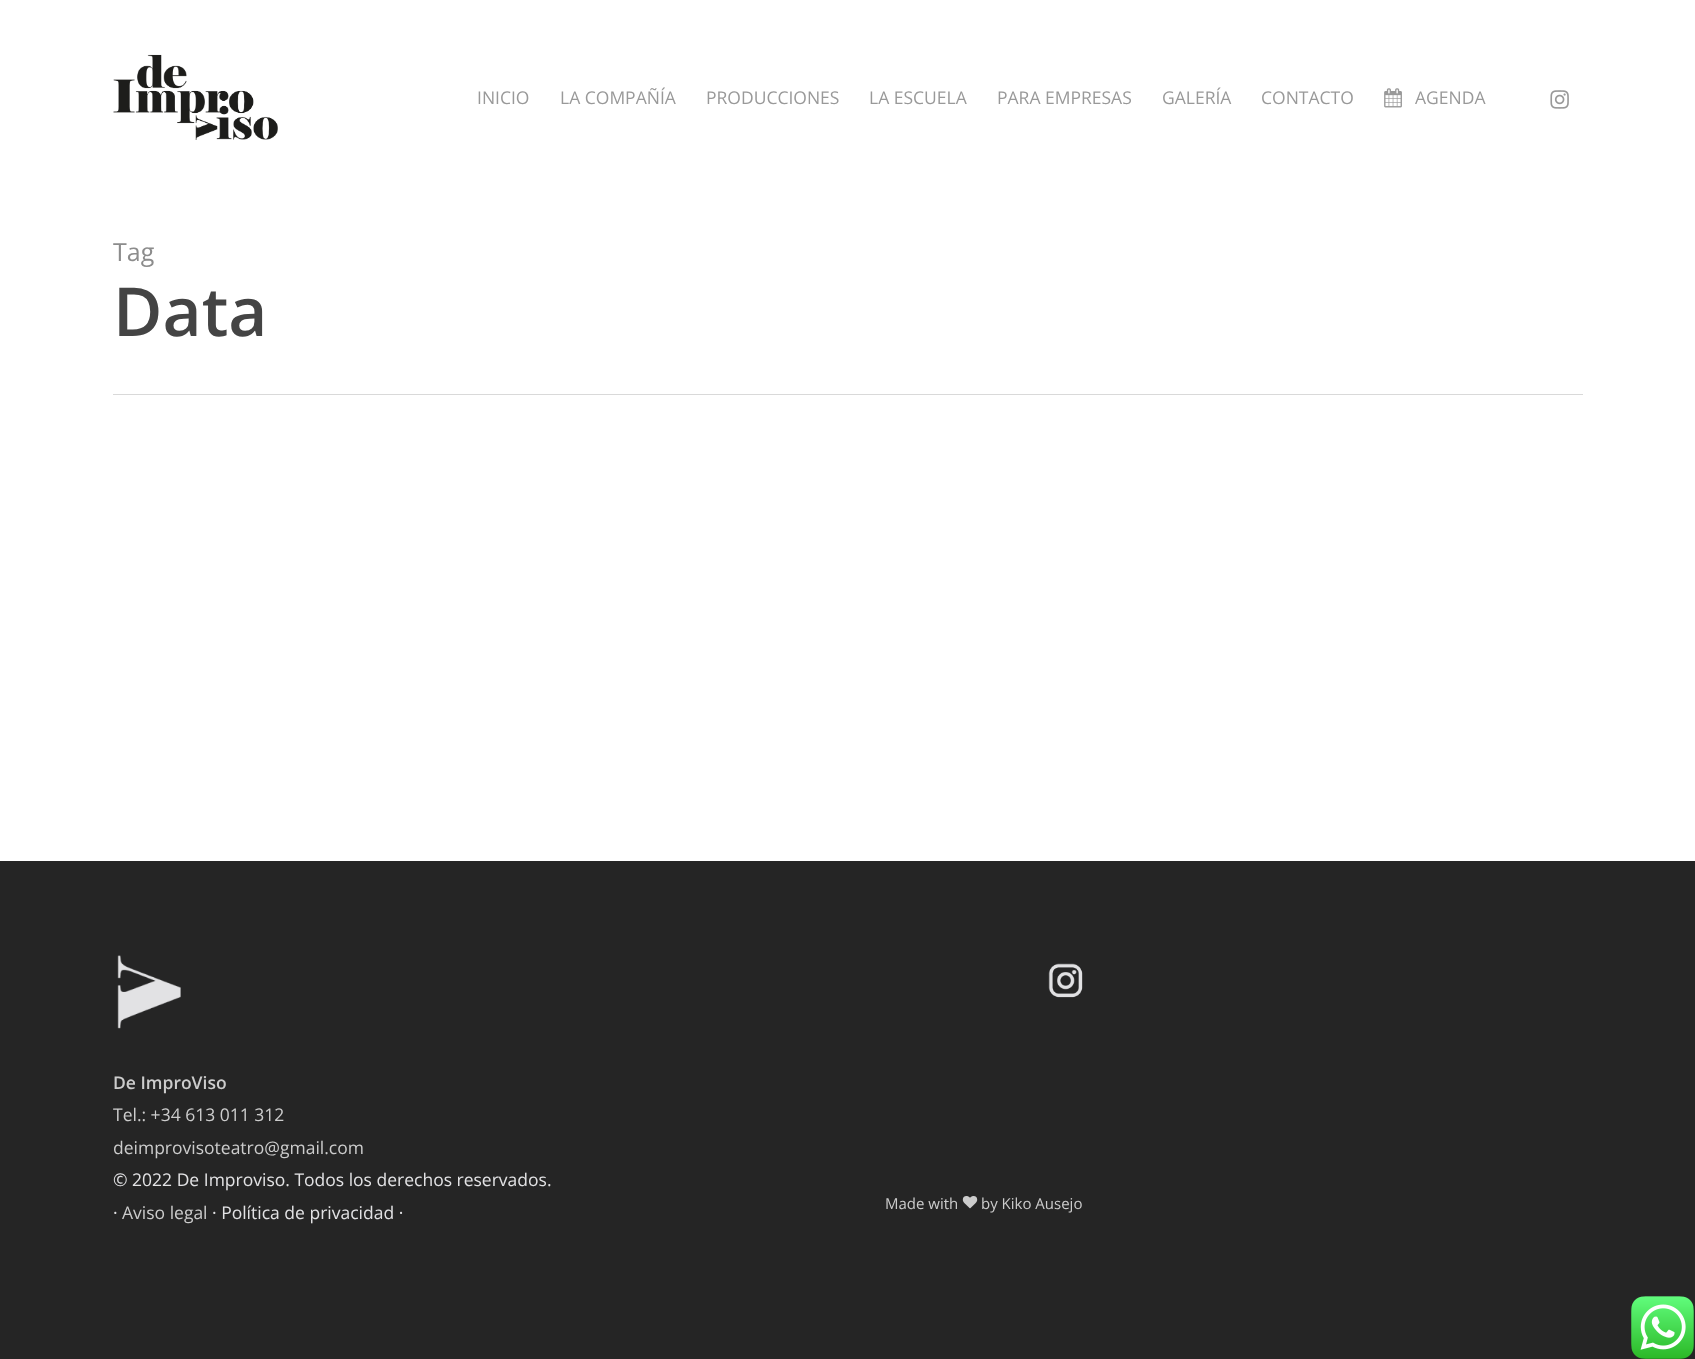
(async () => {
  const canvas = document.querySelector("canvas");
  canvas.width = 1695;
  canvas.height = 1359;
  const ctx = canvas.getContext("2d");
  ctx.miterLimit = 4;
  ctx.fontKerning = "normal";
  async function loadImage(src) {
    const img = new Image();
    img.src = src;
    await img.decode();
    return img;
  }

  ctx.fillStyle = "#ffffff";
  ctx.fillRect(0, 0, 1695, 1359);
  ctx.drawImage(await loadImage("img/1.png"), 113, 54, 165, 86);
  ctx.drawImage(await loadImage("img/2.png"), 1384, 88, 18, 20);
  ctx.drawImage(await loadImage("img/3.png"), 1550, 90, 19, 19);
  ctx.fillStyle = "#d9d9d9";
  ctx.fillRect(113, 394, 1470, 1);
  ctx.fillStyle = "#252525";
  ctx.fillRect(0, 861, 1695, 498);
  ctx.drawImage(await loadImage("img/4.png"), 117, 955, 64, 74);
  ctx.drawImage(await loadImage("img/5.png"), 1048, 963, 35, 35);
  ctx.drawImage(await loadImage("img/6.png"), 962, 1196, 16, 13);
  ctx.drawImage(await loadImage("img/7.png"), 1631, 1296, 63, 63);
  ctx.font = "17.5px Open Sans";
  ctx.fillStyle = "#999999";
  for (const [text, x, y] of [
    ["INICIO", 477, 104],
    ["LA COMPAÑÍA", 560, 104],
    ["PRODUCCIONES", 706, 104],
    ["LA ESCUELA", 869, 104],
    ["PARA EMPRESAS", 997, 104],
    ["GALERÍA", 1162, 104],
    ["CONTACTO", 1261, 104],
    ["AGENDA", 1415, 104],
  ]) {
    ctx.fillText(text, x, y);
  }
  ctx.font = "25px Open Sans";
  ctx.fillStyle = "#8c8c8c";
  ctx.fillText("Tag", 113, 261);
  ctx.font = "600 67.5px Open Sans";
  ctx.fillStyle = "#444444";
  ctx.fillText("Data", 113, 336);
  ctx.font = "600 17.5px Open Sans";
  ctx.fillStyle = "#cccccc";
  ctx.fillText("De ImproViso", 113, 1089);
  ctx.font = "17.5px Open Sans";
  ctx.fillText("Tel.: +34 613 011 312", 113, 1121);
  ctx.fillText("deimprovisoteatro@gmail.com", 113, 1154);
  ctx.fillStyle = "#e2e2e4";
  ctx.fillText("© 2022 De Improviso. Todos los derechos reservados.", 113, 1186);
  ctx.fillText("·", 113, 1219);
  ctx.fillStyle = "#cccccc";
  ctx.fillText("Aviso legal", 122, 1219);
  ctx.fillStyle = "#e2e2e4";
  ctx.fillText("· Política de privacidad ·", 212, 1219);
  ctx.font = "15px Open Sans";
  ctx.fillStyle = "#cccccc";
  ctx.fillText("Made with", 885, 1209);
  ctx.fillText("by Kiko Ausejo", 981, 1209);
})();
